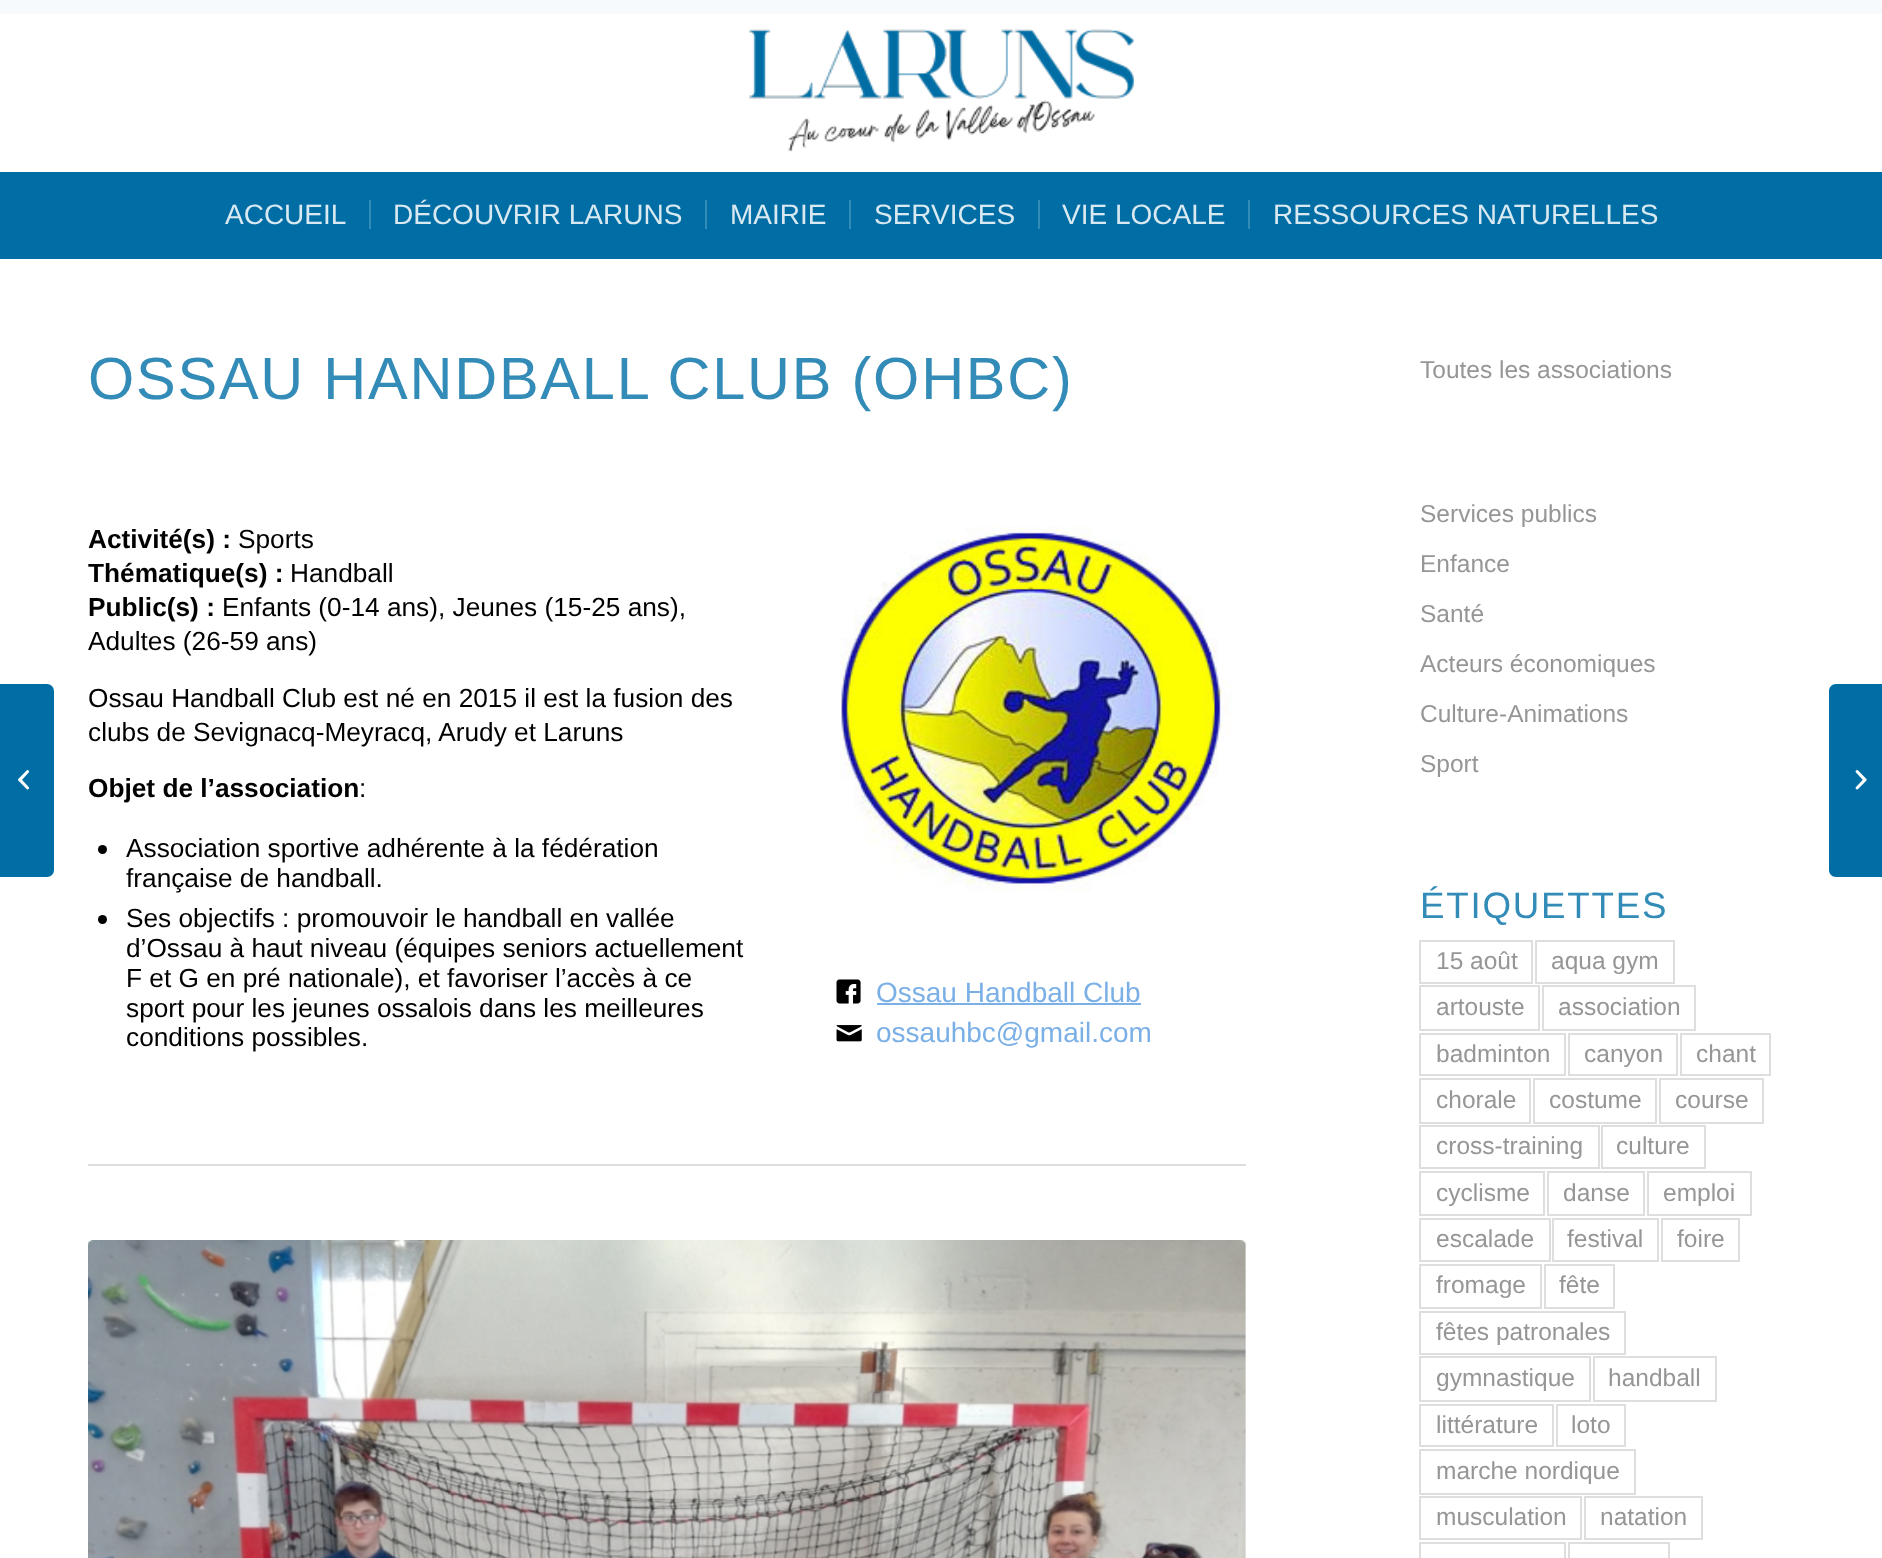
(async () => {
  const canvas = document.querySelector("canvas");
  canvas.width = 1882;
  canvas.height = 1558;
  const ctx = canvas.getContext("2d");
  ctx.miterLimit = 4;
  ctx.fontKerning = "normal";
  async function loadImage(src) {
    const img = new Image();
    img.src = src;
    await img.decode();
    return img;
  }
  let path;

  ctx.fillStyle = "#ffffff";
  ctx.fillRect(0, 0, 1882, 1558);
  ctx.fillStyle = "#f7fafc";
  ctx.fillRect(0, 0, 1882, 14);
  ctx.drawImage(await loadImage("img/1.png"), 749, 29, 385, 123);
  for (const [x, y, w, h, color] of [
    [0, 172, 1882, 87, "#006ea5"],
    [369, 200, 2, 29, "#338bb7"],
    [705, 200, 2, 29, "#338bb7"],
    [849, 200, 2, 29, "#338bb7"],
    [1038, 200, 2, 29, "#338bb7"],
    [1248, 200, 2, 29, "#338bb7"],
  ]) {
    ctx.fillStyle = color;
    ctx.fillRect(x, y, w, h);
  }
  ctx.fillStyle = "#006ea5";
  ctx.beginPath();
  ctx.roundRect(0, 684, 54, 193, [0, 7, 7, 0]);
  ctx.fill();
  ctx.drawImage(await loadImage("img/2.png"), 18, 770, 12, 20);
  ctx.fillStyle = "#000000";
  ctx.beginPath();
  ctx.arc(102.5, 849.5, 4.5, 0, Math.PI * 2);
  ctx.fill();
  ctx.beginPath();
  ctx.arc(102.5, 919.5, 4.5, 0, Math.PI * 2);
  ctx.fill();
  ctx.drawImage(await loadImage("img/3.png"), 840, 526, 392, 365);
  ctx.drawImage(await loadImage("img/4.png"), 836, 979, 25, 25);
  ctx.fillStyle = "#7bb0e7";
  ctx.fillRect(877, 1003, 264, 2);
  ctx.drawImage(await loadImage("img/5.png"), 836, 1025, 26, 17);
  ctx.fillStyle = "#dedede";
  ctx.fillRect(88, 1164, 1158, 2);
  ctx.drawImage(await loadImage("img/6.png"), 88, 1240, 1158, 318);
  ctx.strokeStyle = "#dedede";
  ctx.lineWidth = 2;
  ctx.strokeRect(1420, 941, 112, 42);
  ctx.strokeRect(1536, 941, 138, 42);
  ctx.strokeRect(1420, 986, 119, 44);
  ctx.strokeRect(1543, 986, 152, 44);
  ctx.strokeRect(1420, 1034, 145, 41);
  ctx.strokeRect(1569, 1034, 108, 41);
  ctx.strokeRect(1681, 1034, 89, 41);
  ctx.strokeRect(1420, 1079, 110, 44);
  ctx.strokeRect(1534, 1079, 122, 44);
  ctx.strokeRect(1660, 1079, 103, 44);
  ctx.strokeRect(1420, 1126, 179, 42);
  ctx.strokeRect(1602, 1126, 103, 42);
  ctx.strokeRect(1420, 1172, 124, 43);
  ctx.strokeRect(1548, 1172, 96, 43);
  ctx.strokeRect(1648, 1172, 103, 43);
  ctx.strokeRect(1420, 1219, 130, 42);
  ctx.strokeRect(1553, 1219, 105, 42);
  ctx.strokeRect(1662, 1219, 77, 42);
  ctx.strokeRect(1420, 1265, 121, 43);
  ctx.strokeRect(1545, 1265, 69, 43);
  ctx.strokeRect(1420, 1312, 205, 42);
  ctx.strokeRect(1420, 1357, 170, 44);
  ctx.strokeRect(1594, 1357, 122, 44);
  ctx.strokeRect(1420, 1405, 133, 41);
  ctx.strokeRect(1557, 1405, 68, 41);
  ctx.strokeRect(1420, 1450, 215, 44);
  ctx.strokeRect(1420, 1497, 161, 42);
  ctx.strokeRect(1585, 1497, 117, 42);
  ctx.strokeRect(1420, 1543, 145, 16);
  ctx.strokeRect(1569, 1543, 100, 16);
  ctx.fillStyle = "#006ea5";
  path = new Path2D("M1836 684H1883V877H1836C1832 877 1829 874 1829 870V691C1829 687 1832 684 1836 684Z");
  ctx.fill(path);
  ctx.drawImage(await loadImage("img/7.png"), 1855, 770, 12, 20);
  ctx.font = "28px Liberation Sans";
  ctx.fillStyle = "#d9e9f2";
  for (const [text, x, y] of [
    ["ACCUEIL", 225, 224],
    ["DÉCOUVRIR LARUNS", 393, 224],
    ["MAIRIE", 730, 224],
    ["SERVICES", 874, 224],
    ["VIE LOCALE", 1062, 224],
    ["RESSOURCES NATURELLES", 1273, 224],
  ]) {
    ctx.fillText(text, x, y);
  }
  ctx.letterSpacing = "1.75px";
  ctx.font = "59.5px Liberation Sans";
  ctx.fillStyle = "#338bb7";
  ctx.fillText("OSSAU HANDBALL CLUB (OHBC)", 88, 399);
  ctx.letterSpacing = "0px";
  ctx.font = "bold 26.25px Liberation Sans";
  ctx.fillStyle = "#000000";
  ctx.fillText("Activité(s) :", 88, 548);
  ctx.font = "26.25px Liberation Sans";
  ctx.fillText("Sports", 238, 548);
  ctx.font = "bold 26.25px Liberation Sans";
  ctx.fillText("Thématique(s) :", 88, 582);
  ctx.font = "26.25px Liberation Sans";
  ctx.fillText("Handball", 290, 582);
  ctx.font = "bold 26.25px Liberation Sans";
  ctx.fillText("Public(s) :", 88, 616);
  ctx.font = "26.25px Liberation Sans";
  for (const [text, x, y] of [
    ["Enfants (0-14 ans), Jeunes (15-25 ans),", 222, 616],
    ["Adultes (26-59 ans)", 88, 650],
    ["Ossau Handball Club est né en 2015 il est la fusion des", 88, 707],
    ["clubs de Sevignacq-Meyracq, Arudy et Laruns", 88, 741],
  ]) {
    ctx.fillText(text, x, y);
  }
  ctx.font = "bold 26.25px Liberation Sans";
  ctx.fillText("Objet de l’association", 88, 797);
  ctx.font = "26.25px Liberation Sans";
  for (const [text, x, y] of [
    [":", 359, 797],
    ["Association sportive adhérente à la fédération", 126, 857],
    ["française de handball.", 126, 887],
    ["Ses objectifs : promouvoir le handball en vallée", 126, 927],
    ["d’Ossau à haut niveau (équipes seniors actuellement", 126, 957],
    ["F et G en pré nationale), et favoriser l’accès à ce", 126, 987],
    ["sport pour les jeunes ossalois dans les meilleures", 126, 1017],
    ["conditions possibles.", 126, 1046],
  ]) {
    ctx.fillText(text, x, y);
  }
  ctx.font = "28px Liberation Sans";
  ctx.fillStyle = "#7bb0e7";
  ctx.fillText("Ossau Handball Club", 876, 1002);
  ctx.fillText("ossauhbc@gmail.com", 876, 1042);
  ctx.font = "24.5px Liberation Sans";
  ctx.fillStyle = "#969696";
  for (const [text, x, y] of [
    ["Toutes les associations", 1420, 378],
    ["Services publics", 1420, 522],
    ["Enfance", 1420, 572],
    ["Santé", 1420, 622],
    ["Acteurs économiques", 1420, 672],
    ["Culture-Animations", 1420, 722],
    ["Sport", 1420, 772],
  ]) {
    ctx.fillText(text, x, y);
  }
  ctx.letterSpacing = "1.75px";
  ctx.font = "36.75px Liberation Sans";
  ctx.fillStyle = "#338bb7";
  ctx.fillText("ÉTIQUETTES", 1420, 918);
  ctx.letterSpacing = "0px";
  ctx.font = "24.5px Liberation Sans";
  ctx.fillStyle = "#969696";
  for (const [text, x, y] of [
    ["15 août", 1436, 969],
    ["aqua gym", 1551, 969],
    ["artouste", 1436, 1015],
    ["association", 1558, 1015],
    ["badminton", 1436, 1062],
    ["canyon", 1584, 1062],
    ["chant", 1696, 1062],
    ["chorale", 1436, 1108],
    ["costume", 1549, 1108],
    ["course", 1675, 1108],
    ["cross-training", 1436, 1154],
    ["culture", 1616, 1154],
    ["cyclisme", 1436, 1201],
    ["danse", 1563, 1201],
    ["emploi", 1663, 1201],
    ["escalade", 1436, 1247],
    ["festival", 1567, 1247],
    ["foire", 1677, 1247],
    ["fromage", 1436, 1293],
    ["fête", 1559, 1293],
    ["fêtes patronales", 1436, 1340],
    ["gymnastique", 1436, 1386],
    ["handball", 1608, 1386],
    ["littérature", 1436, 1433],
    ["loto", 1571, 1433],
    ["marche nordique", 1436, 1479],
    ["musculation", 1436, 1525],
    ["natation", 1600, 1525],
  ]) {
    ctx.fillText(text, x, y);
  }
})();
